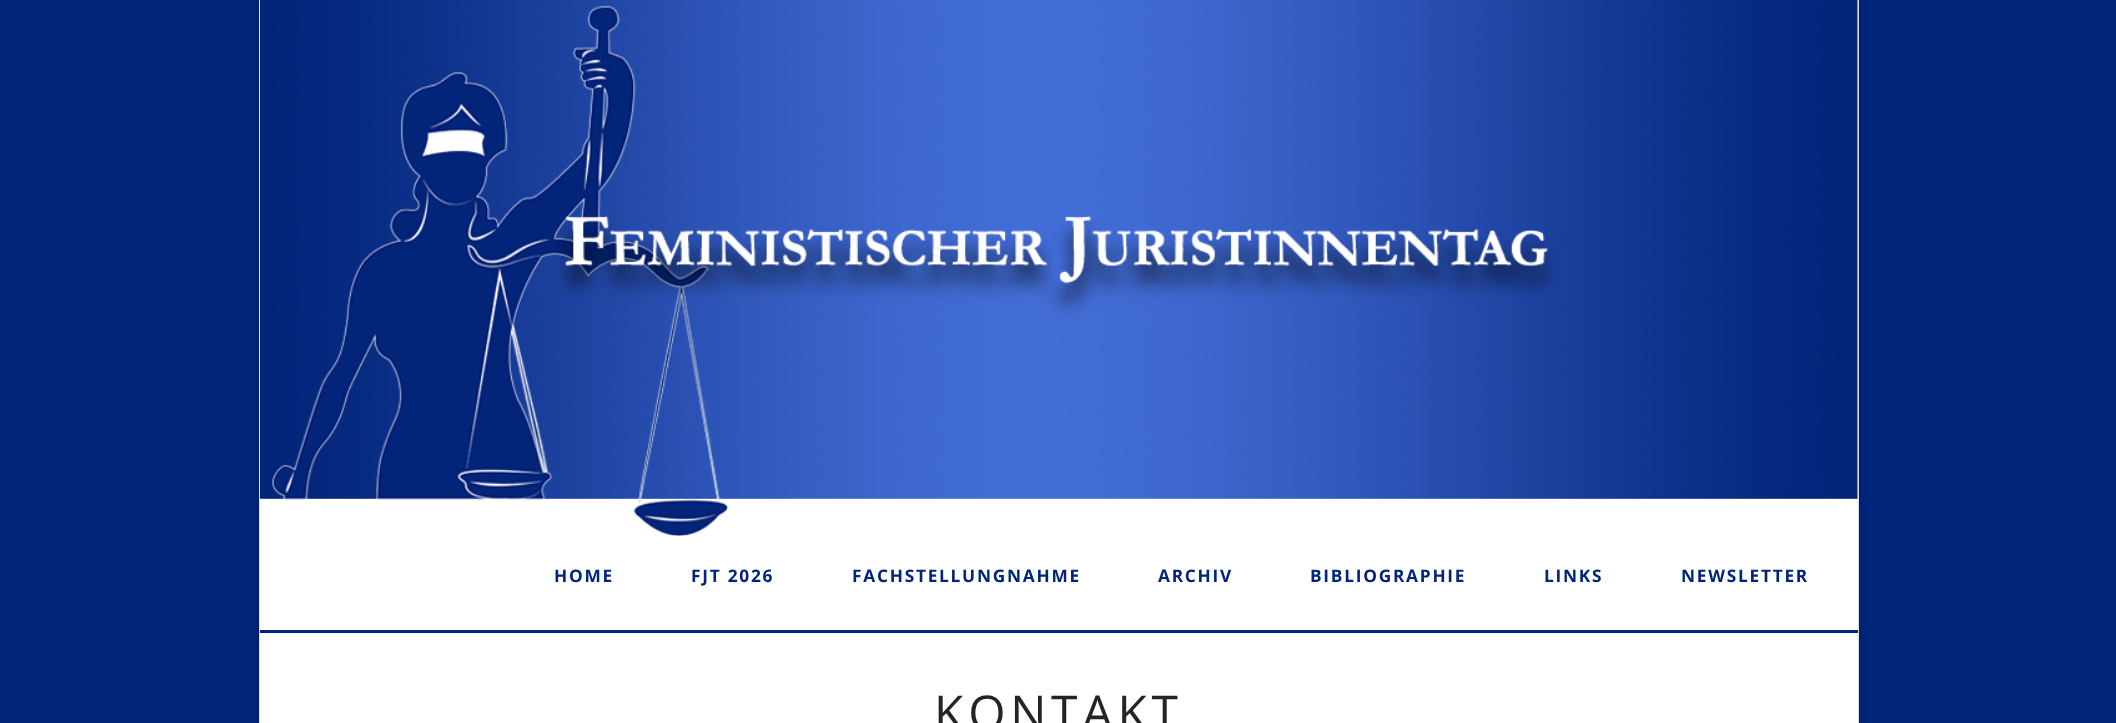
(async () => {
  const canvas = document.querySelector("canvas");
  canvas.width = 2116;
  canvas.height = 723;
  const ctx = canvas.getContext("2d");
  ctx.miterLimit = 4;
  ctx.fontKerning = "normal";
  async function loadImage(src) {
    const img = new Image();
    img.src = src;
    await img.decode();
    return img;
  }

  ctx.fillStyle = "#022479";
  ctx.fillRect(0, 0, 2116, 723);
  ctx.fillStyle = "rgba(0, 0, 0, 0.2)";
  ctx.filter = "blur(3px)";
  ctx.beginPath();
  ctx.rect(259, 0, 1600, 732);
  ctx.fill();
  ctx.filter = "none";
  for (const [x, y, w, h, color] of [
    [260, 0, 1598, 723, "#ffffff"],
    [1858, 0, 1, 723, "#dcdcdc"],
    [259, 0, 1, 723, "#dcdcdc"],
  ]) {
    ctx.fillStyle = color;
    ctx.fillRect(x, y, w, h);
  }
  ctx.drawImage(await loadImage("img/1.png"), 260, 0, 1598, 536);
  ctx.fillStyle = "#022479";
  ctx.fillRect(260, 630, 1598, 3);
  ctx.letterSpacing = "1.75px";
  ctx.font = "bold 17.3px Open Sans";
  for (const [text, x, y] of [
    ["HOME", 554, 582],
    ["FJT 2026", 691, 582],
    ["FACHSTELLUNGNAHME", 852, 582],
    ["ARCHIV", 1158, 582],
    ["BIBLIOGRAPHIE", 1310, 582],
    ["LINKS", 1544, 582],
    ["NEWSLETTER", 1681, 582],
  ]) {
    ctx.fillText(text, x, y);
  }
  ctx.letterSpacing = "4.75px";
  ctx.font = "48px Open Sans";
  ctx.fillStyle = "#242424";
  ctx.fillText("KONTAKT", 934, 730);
})();
